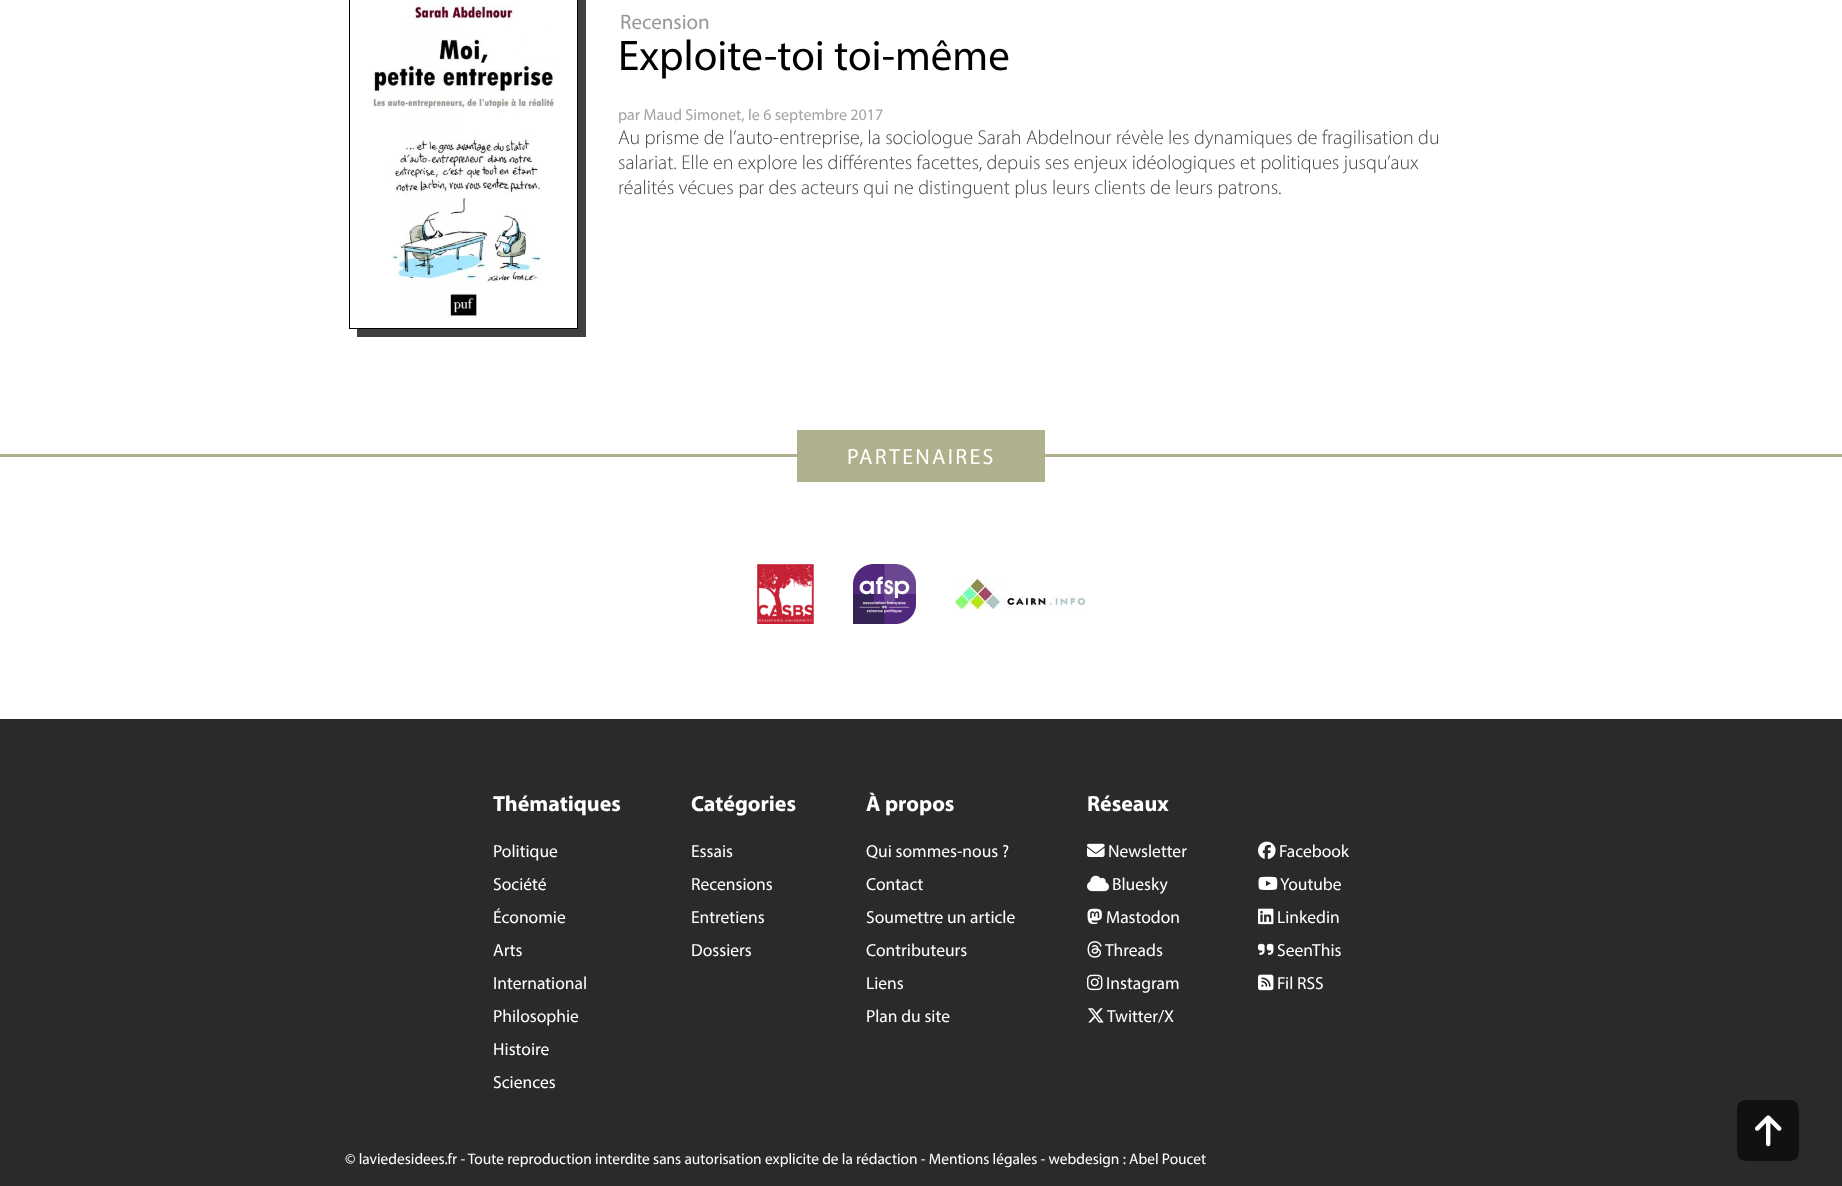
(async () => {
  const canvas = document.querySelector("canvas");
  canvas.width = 1842;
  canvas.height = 1186;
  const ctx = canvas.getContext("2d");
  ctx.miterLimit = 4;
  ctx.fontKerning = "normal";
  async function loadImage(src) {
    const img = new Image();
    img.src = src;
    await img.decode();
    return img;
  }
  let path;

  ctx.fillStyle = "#ffffff";
  ctx.fillRect(0, 0, 1842, 1186);
  ctx.fillStyle = "#404040";
  path = new Path2D("M357 329V337H586V-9H578V329Z");
  ctx.fill(path);
  ctx.strokeStyle = "#000000";
  ctx.strokeRect(349.5, -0.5, 228, 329);
  ctx.drawImage(await loadImage("img/1.png"), 373, 2, 183, 316);
  ctx.fillStyle = "#b0b08c";
  ctx.fillRect(0, 454, 1842, 3);
  ctx.fillRect(797, 430, 248, 52);
  ctx.drawImage(await loadImage("img/2.png"), 757, 564, 57, 60);
  ctx.drawImage(await loadImage("img/3.png"), 853, 564, 63, 60);
  ctx.drawImage(await loadImage("img/4.png"), 955, 579, 130, 30);
  ctx.fillStyle = "#2a2a2a";
  ctx.fillRect(0, 719, 1842, 467);
  ctx.drawImage(await loadImage("img/5.png"), 1087, 843, 18, 14);
  ctx.drawImage(await loadImage("img/6.png"), 1087, 875, 22, 17);
  ctx.drawImage(await loadImage("img/7.png"), 1087, 908, 15, 17);
  ctx.drawImage(await loadImage("img/8.png"), 1087, 941, 15, 17);
  ctx.drawImage(await loadImage("img/9.png"), 1087, 974, 16, 17);
  ctx.drawImage(await loadImage("img/10.png"), 1088, 1008, 16, 15);
  ctx.drawImage(await loadImage("img/11.png"), 1258, 841, 18, 18);
  ctx.drawImage(await loadImage("img/12.png"), 1258, 876, 20, 14);
  ctx.drawImage(await loadImage("img/13.png"), 1258, 908, 16, 17);
  ctx.drawImage(await loadImage("img/14.png"), 1258, 943, 16, 12);
  ctx.drawImage(await loadImage("img/15.png"), 1258, 974, 16, 17);
  ctx.fillStyle = "#111111";
  path = new Path2D("M1737 1109C1737 1099 1746 1100 1753 1100H1792C1799 1102 1799 1110 1799 1116V1131C1799 1165 1802 1161 1768 1161H1753C1738 1161 1737 1160 1737 1145Z");
  ctx.fill(path);
  ctx.drawImage(await loadImage("img/16.png"), 1755, 1115, 27, 32);
  ctx.font = "21px Myriad";
  ctx.fillStyle = "#989898";
  ctx.fillText("Recension", 620, 29);
  ctx.font = "43px Myriad";
  ctx.fillStyle = "#000000";
  ctx.fillText("Exploite-toi toi-même", 618, 70);
  ctx.font = "16px Myriad";
  ctx.fillStyle = "#a3a3a3";
  ctx.fillText("par Maud Simonet, le 6 septembre 2017", 618, 120);
  ctx.font = "300 20px Myriad";
  ctx.fillStyle = "#444444";
  for (const [text, x, y] of [
    ["Au prisme de l’auto-entreprise, la sociologue Sarah Abdelnour révèle les dynamiques de fragilisation du", 618, 144],
    ["salariat. Elle en explore les différentes facettes, depuis ses enjeux idéologiques et politiques jusqu’aux", 618, 169],
    ["réalités vécues par des acteurs qui ne distinguent plus leurs clients de leurs patrons.", 618, 194],
  ]) {
    ctx.fillText(text, x, y);
  }
  ctx.letterSpacing = "2.25px";
  ctx.font = "22px Myriad";
  ctx.fillStyle = "#ffffff";
  ctx.fillText("PARTENAIRES", 847, 464);
  ctx.letterSpacing = "0px";
  ctx.font = "bold 22px Myriad";
  ctx.fillText("Thématiques", 493, 811);
  ctx.font = "17.5px Myriad";
  for (const [text, x, y] of [
    ["Politique", 493, 857],
    ["Société", 493, 890],
    ["Économie", 493, 923],
    ["Arts", 493, 956],
    ["International", 493, 989],
    ["Philosophie", 493, 1022],
    ["Histoire", 493, 1055],
    ["Sciences", 493, 1088],
  ]) {
    ctx.fillText(text, x, y);
  }
  ctx.font = "bold 22px Myriad";
  ctx.fillText("Catégories", 691, 811);
  ctx.font = "17.5px Myriad";
  for (const [text, x, y] of [
    ["Essais", 691, 857],
    ["Recensions", 691, 890],
    ["Entretiens", 691, 923],
    ["Dossiers", 691, 956],
  ]) {
    ctx.fillText(text, x, y);
  }
  ctx.font = "bold 22px Myriad";
  ctx.fillText("À propos", 866, 811);
  ctx.font = "17.5px Myriad";
  for (const [text, x, y] of [
    ["Qui sommes-nous", 866, 857],
    ["?", 1002, 857],
    ["Contact", 866, 890],
    ["Soumettre un article", 866, 923],
    ["Contributeurs", 866, 956],
    ["Liens", 866, 989],
    ["Plan du site", 866, 1022],
  ]) {
    ctx.fillText(text, x, y);
  }
  ctx.font = "bold 22px Myriad";
  ctx.fillText("Réseaux", 1087, 811);
  ctx.font = "17.5px Myriad";
  for (const [text, x, y] of [
    ["Newsletter", 1108, 857],
    ["Bluesky", 1112, 890],
    ["Mastodon", 1106, 923],
    ["Threads", 1105, 956],
    ["Instagram", 1106, 989],
    ["Twitter/X", 1107, 1022],
    ["Facebook", 1279, 857],
    ["Youtube", 1280, 890],
    ["Linkedin", 1277, 923],
    ["SeenThis", 1277, 956],
    ["Fil RSS", 1277, 989],
  ]) {
    ctx.fillText(text, x, y);
  }
  ctx.font = "15.4px Myriad";
  ctx.fillText("© laviedesidees.fr - Toute reproduction interdite sans autorisation explicite de la rédaction - Mentions légales - webdesign : Abel Poucet", 345, 1164);
})();
